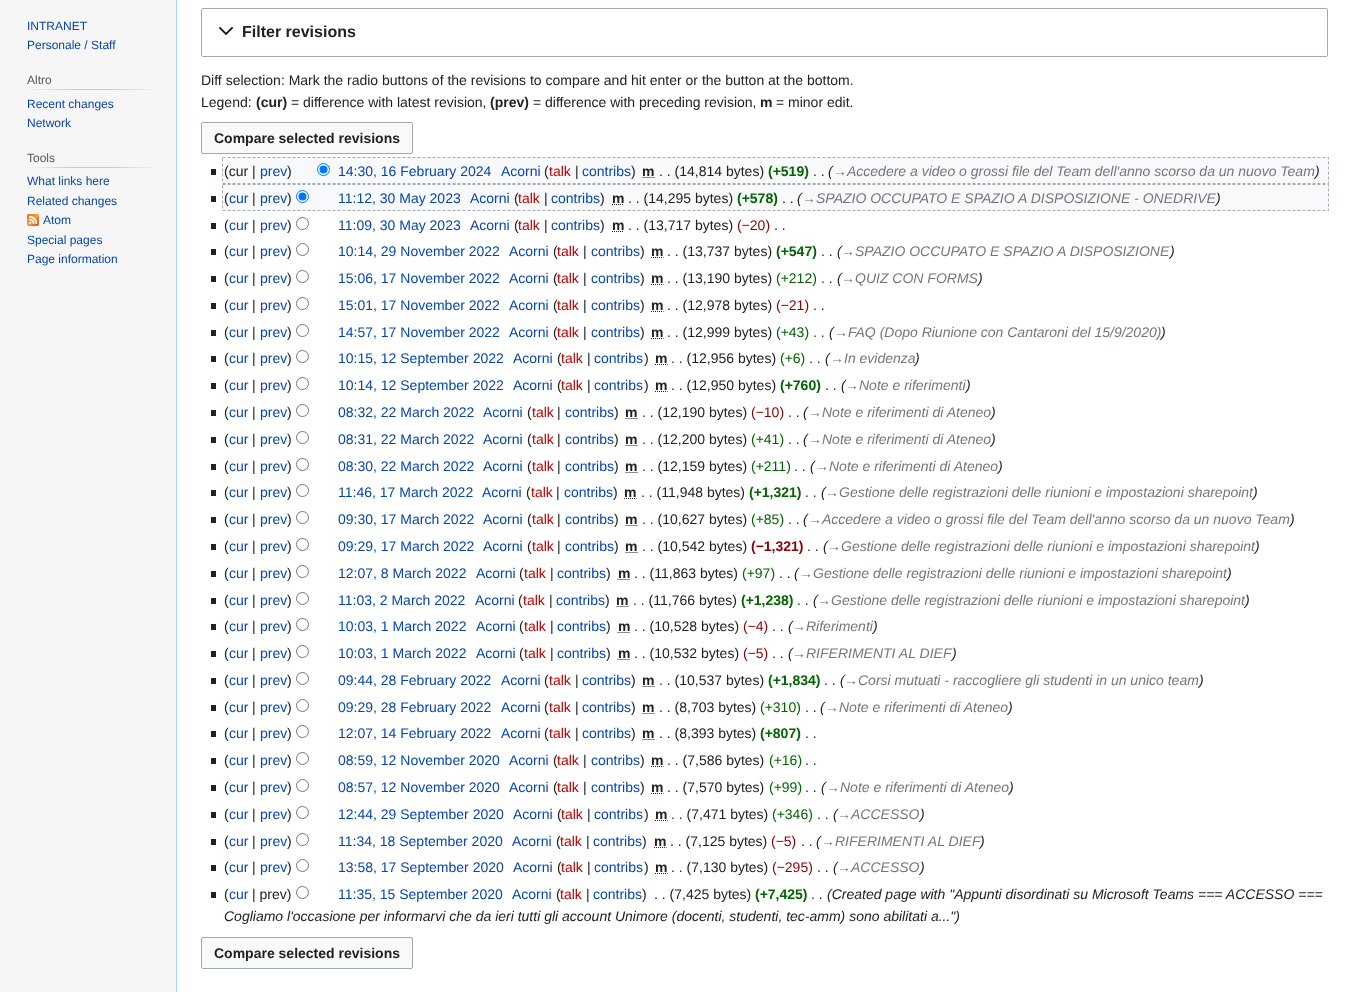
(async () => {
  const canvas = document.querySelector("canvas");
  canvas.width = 1352;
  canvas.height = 992;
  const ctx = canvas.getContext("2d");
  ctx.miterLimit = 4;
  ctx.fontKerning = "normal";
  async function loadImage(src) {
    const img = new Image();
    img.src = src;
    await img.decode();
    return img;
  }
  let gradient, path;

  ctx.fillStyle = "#f6f6f6";
  ctx.fillRect(0, 0, 1352, 992);
  gradient = ctx.createLinearGradient(27, 90, 158, 90);
  gradient.addColorStop(0, "#f6f6f6");
  gradient.addColorStop(0.33, "#c8ccd1");
  gradient.addColorStop(0.66, "#c8ccd1");
  gradient.addColorStop(1, "#f6f6f6");
  ctx.fillStyle = gradient;
  ctx.fillRect(27, 89, 131, 1);
  gradient = ctx.createLinearGradient(27, 168, 158, 168);
  gradient.addColorStop(0, "#f6f6f6");
  gradient.addColorStop(0.33, "#c8ccd1");
  gradient.addColorStop(0.66, "#c8ccd1");
  gradient.addColorStop(1, "#f6f6f6");
  ctx.fillStyle = gradient;
  ctx.fillRect(27, 167, 131, 1);
  ctx.drawImage(await loadImage("img/1.png"), 27, 214, 12, 12);
  ctx.fillStyle = "#ffffff";
  ctx.fillRect(177, 0, 1175, 992);
  ctx.fillStyle = "#a7d7f9";
  ctx.fillRect(176, 0, 1, 992);
  ctx.beginPath();
  ctx.roundRect(201.5, 8.5, 1126, 48, 1.5);
  ctx.strokeStyle = "#a2a9b1";
  ctx.stroke();
  ctx.drawImage(await loadImage("img/2.png"), 219, 27, 15, 8);
  ctx.fillStyle = "#f8f9fa";
  ctx.beginPath();
  ctx.roundRect(201.5, 122.5, 211, 31, 1.5);
  ctx.fill();
  ctx.stroke();
  ctx.fillRect(223, 158, 1105, 25);
  ctx.fillStyle = "#202122";
  ctx.fillRect(211, 169, 5, 6);
  ctx.fillStyle = "#ffffff";
  ctx.beginPath();
  ctx.arc(323.5, 169.5, 6, 0, Math.PI * 2);
  ctx.fill();
  ctx.strokeStyle = "#0075ff";
  ctx.stroke();
  ctx.fillStyle = "#0075ff";
  ctx.beginPath();
  ctx.arc(323.5, 169.5, 4, 0, Math.PI * 2);
  ctx.fill();
  path = new Path2D("M642.5 177.5H655");
  ctx.strokeStyle = "#202122";
  ctx.setLineDash([1, 1]);
  ctx.stroke(path);
  ctx.fillStyle = "#f8f9fa";
  ctx.fillRect(223, 185, 1105, 25);
  ctx.fillStyle = "#202122";
  ctx.fillRect(211, 196, 5, 6);
  ctx.fillStyle = "#ffffff";
  ctx.beginPath();
  ctx.arc(302.5, 196.5, 6, 0, Math.PI * 2);
  ctx.fill();
  ctx.strokeStyle = "#0075ff";
  ctx.setLineDash([]);
  ctx.stroke();
  ctx.fillStyle = "#0075ff";
  ctx.beginPath();
  ctx.arc(302.5, 196.5, 4, 0, Math.PI * 2);
  ctx.fill();
  path = new Path2D("M612 204.5H624");
  ctx.strokeStyle = "#202122";
  ctx.setLineDash([1, 1]);
  ctx.stroke(path);
  ctx.fillStyle = "#202122";
  ctx.fillRect(211, 223, 5, 6);
  ctx.beginPath();
  ctx.arc(302.5, 223.5, 6, 0, Math.PI * 2);
  ctx.strokeStyle = "#767676";
  ctx.setLineDash([]);
  ctx.stroke();
  path = new Path2D("M612 231.5H624");
  ctx.strokeStyle = "#202122";
  ctx.setLineDash([1, 1]);
  ctx.stroke(path);
  ctx.fillRect(211, 249, 5, 6);
  ctx.beginPath();
  ctx.arc(302.5, 249.5, 6, 0, Math.PI * 2);
  ctx.strokeStyle = "#767676";
  ctx.setLineDash([]);
  ctx.stroke();
  path = new Path2D("M651 257.5H663.5");
  ctx.strokeStyle = "#202122";
  ctx.setLineDash([1, 1]);
  ctx.stroke(path);
  ctx.fillRect(211, 276, 5, 6);
  ctx.beginPath();
  ctx.arc(302.5, 276.5, 6, 0, Math.PI * 2);
  ctx.strokeStyle = "#767676";
  ctx.setLineDash([]);
  ctx.stroke();
  path = new Path2D("M651 284.5H663.5");
  ctx.strokeStyle = "#202122";
  ctx.setLineDash([1, 1]);
  ctx.stroke(path);
  ctx.fillRect(211, 303, 5, 6);
  ctx.beginPath();
  ctx.arc(302.5, 303.5, 6, 0, Math.PI * 2);
  ctx.strokeStyle = "#767676";
  ctx.setLineDash([]);
  ctx.stroke();
  path = new Path2D("M651 311.5H663.5");
  ctx.strokeStyle = "#202122";
  ctx.setLineDash([1, 1]);
  ctx.stroke(path);
  ctx.fillRect(211, 330, 5, 6);
  ctx.beginPath();
  ctx.arc(302.5, 330.5, 6, 0, Math.PI * 2);
  ctx.strokeStyle = "#767676";
  ctx.setLineDash([]);
  ctx.stroke();
  path = new Path2D("M651 338.5H663.5");
  ctx.strokeStyle = "#202122";
  ctx.setLineDash([1, 1]);
  ctx.stroke(path);
  ctx.fillRect(211, 356, 5, 6);
  ctx.beginPath();
  ctx.arc(302.5, 356.5, 6, 0, Math.PI * 2);
  ctx.strokeStyle = "#767676";
  ctx.setLineDash([]);
  ctx.stroke();
  path = new Path2D("M655 364.5H667.5");
  ctx.strokeStyle = "#202122";
  ctx.setLineDash([1, 1]);
  ctx.stroke(path);
  ctx.fillRect(211, 383, 5, 6);
  ctx.beginPath();
  ctx.arc(302.5, 383.5, 6, 0, Math.PI * 2);
  ctx.strokeStyle = "#767676";
  ctx.setLineDash([]);
  ctx.stroke();
  path = new Path2D("M655 391.5H667.5");
  ctx.strokeStyle = "#202122";
  ctx.setLineDash([1, 1]);
  ctx.stroke(path);
  ctx.fillRect(211, 410, 5, 6);
  ctx.beginPath();
  ctx.arc(302.5, 410.5, 6, 0, Math.PI * 2);
  ctx.strokeStyle = "#767676";
  ctx.setLineDash([]);
  ctx.stroke();
  path = new Path2D("M625.5 418.5H638");
  ctx.strokeStyle = "#202122";
  ctx.setLineDash([1, 1]);
  ctx.stroke(path);
  ctx.fillRect(211, 437, 5, 6);
  ctx.beginPath();
  ctx.arc(302.5, 437.5, 6, 0, Math.PI * 2);
  ctx.strokeStyle = "#767676";
  ctx.setLineDash([]);
  ctx.stroke();
  path = new Path2D("M625.5 445.5H638");
  ctx.strokeStyle = "#202122";
  ctx.setLineDash([1, 1]);
  ctx.stroke(path);
  ctx.fillRect(211, 464, 5, 6);
  ctx.beginPath();
  ctx.arc(302.5, 464.5, 6, 0, Math.PI * 2);
  ctx.strokeStyle = "#767676";
  ctx.setLineDash([]);
  ctx.stroke();
  path = new Path2D("M625.5 472.5H638");
  ctx.strokeStyle = "#202122";
  ctx.setLineDash([1, 1]);
  ctx.stroke(path);
  ctx.fillRect(211, 490, 5, 6);
  ctx.beginPath();
  ctx.arc(302.5, 490.5, 6, 0, Math.PI * 2);
  ctx.strokeStyle = "#767676";
  ctx.setLineDash([]);
  ctx.stroke();
  path = new Path2D("M624 498.5H636.5");
  ctx.strokeStyle = "#202122";
  ctx.setLineDash([1, 1]);
  ctx.stroke(path);
  ctx.fillRect(211, 517, 5, 6);
  ctx.beginPath();
  ctx.arc(302.5, 517.5, 6, 0, Math.PI * 2);
  ctx.strokeStyle = "#767676";
  ctx.setLineDash([]);
  ctx.stroke();
  path = new Path2D("M625.5 525.5H638");
  ctx.strokeStyle = "#202122";
  ctx.setLineDash([1, 1]);
  ctx.stroke(path);
  ctx.fillRect(211, 544, 5, 6);
  ctx.beginPath();
  ctx.arc(302.5, 544.5, 6, 0, Math.PI * 2);
  ctx.strokeStyle = "#767676";
  ctx.setLineDash([]);
  ctx.stroke();
  path = new Path2D("M625.5 552.5H638");
  ctx.strokeStyle = "#202122";
  ctx.setLineDash([1, 1]);
  ctx.stroke(path);
  ctx.fillRect(211, 571, 5, 6);
  ctx.beginPath();
  ctx.arc(302.5, 571.5, 6, 0, Math.PI * 2);
  ctx.strokeStyle = "#767676";
  ctx.setLineDash([]);
  ctx.stroke();
  path = new Path2D("M617.5 579.5H630");
  ctx.strokeStyle = "#202122";
  ctx.setLineDash([1, 1]);
  ctx.stroke(path);
  ctx.fillRect(211, 598, 5, 6);
  ctx.beginPath();
  ctx.arc(302.5, 598.5, 6, 0, Math.PI * 2);
  ctx.strokeStyle = "#767676";
  ctx.setLineDash([]);
  ctx.stroke();
  path = new Path2D("M616.5 606.5H629");
  ctx.strokeStyle = "#202122";
  ctx.setLineDash([1, 1]);
  ctx.stroke(path);
  ctx.fillRect(211, 624, 5, 6);
  ctx.beginPath();
  ctx.arc(302.5, 624.5, 6, 0, Math.PI * 2);
  ctx.strokeStyle = "#767676";
  ctx.setLineDash([]);
  ctx.stroke();
  path = new Path2D("M617.5 632.5H630");
  ctx.strokeStyle = "#202122";
  ctx.setLineDash([1, 1]);
  ctx.stroke(path);
  ctx.fillRect(211, 651, 5, 6);
  ctx.beginPath();
  ctx.arc(302.5, 651.5, 6, 0, Math.PI * 2);
  ctx.strokeStyle = "#767676";
  ctx.setLineDash([]);
  ctx.stroke();
  path = new Path2D("M617.5 659.5H630");
  ctx.strokeStyle = "#202122";
  ctx.setLineDash([1, 1]);
  ctx.stroke(path);
  ctx.fillRect(211, 678, 5, 6);
  ctx.beginPath();
  ctx.arc(302.5, 678.5, 6, 0, Math.PI * 2);
  ctx.strokeStyle = "#767676";
  ctx.setLineDash([]);
  ctx.stroke();
  path = new Path2D("M642.5 686.5H655");
  ctx.strokeStyle = "#202122";
  ctx.setLineDash([1, 1]);
  ctx.stroke(path);
  ctx.fillRect(211, 705, 5, 6);
  ctx.beginPath();
  ctx.arc(302.5, 705.5, 6, 0, Math.PI * 2);
  ctx.strokeStyle = "#767676";
  ctx.setLineDash([]);
  ctx.stroke();
  path = new Path2D("M642.5 713.5H655");
  ctx.strokeStyle = "#202122";
  ctx.setLineDash([1, 1]);
  ctx.stroke(path);
  ctx.fillRect(211, 731, 5, 6);
  ctx.beginPath();
  ctx.arc(302.5, 731.5, 6, 0, Math.PI * 2);
  ctx.strokeStyle = "#767676";
  ctx.setLineDash([]);
  ctx.stroke();
  path = new Path2D("M642.5 739.5H655");
  ctx.strokeStyle = "#202122";
  ctx.setLineDash([1, 1]);
  ctx.stroke(path);
  ctx.fillRect(211, 758, 5, 6);
  ctx.beginPath();
  ctx.arc(302.5, 758.5, 6, 0, Math.PI * 2);
  ctx.strokeStyle = "#767676";
  ctx.setLineDash([]);
  ctx.stroke();
  path = new Path2D("M651 766.5H663.5");
  ctx.strokeStyle = "#202122";
  ctx.setLineDash([1, 1]);
  ctx.stroke(path);
  ctx.fillRect(211, 785, 5, 6);
  ctx.beginPath();
  ctx.arc(302.5, 785.5, 6, 0, Math.PI * 2);
  ctx.strokeStyle = "#767676";
  ctx.setLineDash([]);
  ctx.stroke();
  path = new Path2D("M651 793.5H663.5");
  ctx.strokeStyle = "#202122";
  ctx.setLineDash([1, 1]);
  ctx.stroke(path);
  ctx.fillRect(211, 812, 5, 6);
  ctx.beginPath();
  ctx.arc(302.5, 812.5, 6, 0, Math.PI * 2);
  ctx.strokeStyle = "#767676";
  ctx.setLineDash([]);
  ctx.stroke();
  path = new Path2D("M655 820.5H667.5");
  ctx.strokeStyle = "#202122";
  ctx.setLineDash([1, 1]);
  ctx.stroke(path);
  ctx.fillRect(211, 839, 5, 6);
  ctx.beginPath();
  ctx.arc(302.5, 839.5, 6, 0, Math.PI * 2);
  ctx.strokeStyle = "#767676";
  ctx.setLineDash([]);
  ctx.stroke();
  path = new Path2D("M654 847.5H666.5");
  ctx.strokeStyle = "#202122";
  ctx.setLineDash([1, 1]);
  ctx.stroke(path);
  ctx.fillRect(211, 865, 5, 6);
  ctx.beginPath();
  ctx.arc(302.5, 865.5, 6, 0, Math.PI * 2);
  ctx.strokeStyle = "#767676";
  ctx.setLineDash([]);
  ctx.stroke();
  path = new Path2D("M655 873.5H667.5");
  ctx.strokeStyle = "#202122";
  ctx.setLineDash([1, 1]);
  ctx.stroke(path);
  ctx.fillRect(211, 892, 5, 6);
  ctx.beginPath();
  ctx.arc(302.5, 892.5, 6, 0, Math.PI * 2);
  ctx.strokeStyle = "#767676";
  ctx.setLineDash([]);
  ctx.stroke();
  ctx.fillStyle = "#f8f9fa";
  ctx.beginPath();
  ctx.roundRect(201.5, 937.5, 211, 31, 1.5);
  ctx.fill();
  ctx.strokeStyle = "#a2a9b1";
  ctx.stroke();
  ctx.font = "12px Liberation Sans";
  ctx.fillStyle = "#0645ad";
  ctx.fillText("INTRANET", 27, 30);
  ctx.fillText("Personale / Staff", 27, 49);
  ctx.fillStyle = "#54595d";
  ctx.fillText("Altro", 27, 84);
  ctx.fillStyle = "#0645ad";
  ctx.fillText("Recent changes", 27, 108);
  ctx.fillText("Network", 27, 127);
  ctx.fillStyle = "#54595d";
  ctx.fillText("Tools", 27, 162);
  ctx.fillStyle = "#0645ad";
  for (const [text, x, y] of [
    ["What links here", 27, 185],
    ["Related changes", 27, 205],
    ["Atom", 43, 224],
    ["Special pages", 27, 244],
    ["Page information", 27, 263],
  ]) {
    ctx.fillText(text, x, y);
  }
  ctx.font = "bold 16px Liberation Sans";
  ctx.fillStyle = "#202122";
  ctx.fillText("Filter revisions", 242, 37);
  ctx.font = "14px Liberation Sans";
  ctx.fillText("Diff selection: Mark the radio buttons of the revisions to compare and hit enter or the button at the bottom.", 201, 85);
  ctx.fillText("Legend:", 201, 107);
  ctx.font = "bold 14px Liberation Sans";
  ctx.fillText("(cur)", 256, 107);
  ctx.font = "14px Liberation Sans";
  ctx.fillText("= difference with latest revision,", 291, 107);
  ctx.font = "bold 14px Liberation Sans";
  ctx.fillText("(prev)", 490, 107);
  ctx.font = "14px Liberation Sans";
  ctx.fillText("= difference with preceding revision,", 533, 107);
  ctx.font = "bold 14px Liberation Sans";
  ctx.fillText("m", 760, 107);
  ctx.font = "14px Liberation Sans";
  ctx.fillText("= minor edit.", 776, 107);
  ctx.font = "bold 14px Liberation Sans";
  ctx.fillText("Compare selected revisions", 214, 143);
  ctx.font = "14px Liberation Sans";
  ctx.fillText("(cur |", 224, 176);
  ctx.fillStyle = "#0645ad";
  ctx.fillText("prev", 260, 176);
  ctx.fillStyle = "#202122";
  ctx.fillText(")", 287, 176);
  ctx.fillStyle = "#0645ad";
  ctx.fillText("14:30, 16 February 2024", 338, 176);
  ctx.fillText("Acorni", 501, 176);
  ctx.fillStyle = "#202122";
  ctx.fillText("(", 544, 176);
  ctx.fillStyle = "#ba0000";
  ctx.fillText("talk", 549, 176);
  ctx.fillStyle = "#202122";
  ctx.fillText("|", 575, 176);
  ctx.fillStyle = "#0645ad";
  ctx.fillText("contribs", 582, 176);
  ctx.fillStyle = "#202122";
  ctx.fillText(")", 631, 176);
  ctx.font = "bold 14px Liberation Sans";
  ctx.fillText("m", 642, 176);
  ctx.font = "14px Liberation Sans";
  ctx.fillText(". . (14,814 bytes)", 659, 176);
  ctx.font = "bold 14px Liberation Sans";
  ctx.fillStyle = "#006400";
  ctx.fillText("(+519)", 768, 176);
  ctx.font = "14px Liberation Sans";
  ctx.fillStyle = "#202122";
  ctx.fillText(". .", 813, 176);
  ctx.font = "italic 14px Liberation Sans";
  ctx.fillText("(", 828, 176);
  ctx.fillStyle = "#72777d";
  ctx.fillText("→Accedere a video o grossi file del Team dell'anno scorso da un nuovo Team", 833, 176);
  ctx.fillStyle = "#202122";
  ctx.fillText(")", 1315, 176);
  path = new Path2D("M222.5 157.5H1328.5V183.5H222.5Z");
  ctx.setLineDash([3, 2]);
  ctx.stroke(path);
  ctx.font = "14px Liberation Sans";
  ctx.fillText("(", 224, 203);
  ctx.fillStyle = "#0645ad";
  ctx.fillText("cur", 229, 203);
  ctx.fillStyle = "#202122";
  ctx.fillText("|", 252, 203);
  ctx.fillStyle = "#0645ad";
  ctx.fillText("prev", 260, 203);
  ctx.fillStyle = "#202122";
  ctx.fillText(")", 287, 203);
  ctx.fillStyle = "#0645ad";
  ctx.fillText("11:12, 30 May 2023", 338, 203);
  ctx.fillText("Acorni", 470, 203);
  ctx.fillStyle = "#202122";
  ctx.fillText("(", 514, 203);
  ctx.fillStyle = "#ba0000";
  ctx.fillText("talk", 518, 203);
  ctx.fillStyle = "#202122";
  ctx.fillText("|", 544, 203);
  ctx.fillStyle = "#0645ad";
  ctx.fillText("contribs", 551, 203);
  ctx.fillStyle = "#202122";
  ctx.fillText(")", 600, 203);
  ctx.fillText(". . (14,295 bytes)", 628, 203);
  ctx.font = "bold 14px Liberation Sans";
  ctx.fillStyle = "#006400";
  ctx.fillText("(+578)", 737, 203);
  ctx.font = "italic 14px Liberation Sans";
  ctx.fillStyle = "#202122";
  ctx.fillText("(", 797, 203);
  ctx.font = "bold 14px Liberation Sans";
  ctx.fillText("m", 612, 203);
  ctx.font = "14px Liberation Sans";
  ctx.fillText(". .", 782, 203);
  ctx.font = "italic 14px Liberation Sans";
  ctx.fillStyle = "#72777d";
  ctx.fillText("→SPAZIO OCCUPATO E SPAZIO A DISPOSIZIONE - ONEDRIVE", 802, 203);
  ctx.fillStyle = "#202122";
  ctx.fillText(")", 1216, 203);
  path = new Path2D("M222.5 184.5H1328.5V210.5H222.5Z");
  ctx.stroke(path);
  ctx.font = "14px Liberation Sans";
  ctx.fillText("(", 224, 230);
  ctx.fillStyle = "#0645ad";
  ctx.fillText("cur", 229, 230);
  ctx.fillStyle = "#202122";
  ctx.fillText("|", 252, 230);
  ctx.fillStyle = "#0645ad";
  ctx.fillText("prev", 260, 230);
  ctx.fillStyle = "#202122";
  ctx.fillText(")", 287, 230);
  ctx.fillStyle = "#0645ad";
  ctx.fillText("11:09, 30 May 2023", 338, 230);
  ctx.fillText("Acorni", 470, 230);
  ctx.fillStyle = "#202122";
  ctx.fillText("(", 514, 230);
  ctx.fillStyle = "#ba0000";
  ctx.fillText("talk", 518, 230);
  ctx.fillStyle = "#202122";
  ctx.fillText("|", 544, 230);
  ctx.fillStyle = "#0645ad";
  ctx.fillText("contribs", 551, 230);
  ctx.fillStyle = "#202122";
  ctx.fillText(")", 600, 230);
  ctx.font = "bold 14px Liberation Sans";
  ctx.fillText("m", 612, 230);
  ctx.font = "14px Liberation Sans";
  ctx.fillText(". . (13,717 bytes)", 628, 230);
  ctx.fillStyle = "#8b0000";
  ctx.fillText("(−20)", 737, 230);
  ctx.fillStyle = "#202122";
  ctx.fillText(". .", 774, 230);
  ctx.fillText("(", 224, 256);
  ctx.fillStyle = "#0645ad";
  ctx.fillText("cur", 229, 256);
  ctx.fillStyle = "#202122";
  ctx.fillText("|", 252, 256);
  ctx.fillStyle = "#0645ad";
  ctx.fillText("prev", 260, 256);
  ctx.fillStyle = "#202122";
  ctx.fillText(")", 287, 256);
  ctx.fillStyle = "#0645ad";
  ctx.fillText("10:14, 29 November 2022", 338, 256);
  ctx.fillText("Acorni", 509, 256);
  ctx.fillStyle = "#202122";
  ctx.fillText("(", 553, 256);
  ctx.fillStyle = "#ba0000";
  ctx.fillText("talk", 557, 256);
  ctx.fillStyle = "#202122";
  ctx.fillText("|", 583, 256);
  ctx.fillStyle = "#0645ad";
  ctx.fillText("contribs", 591, 256);
  ctx.fillStyle = "#202122";
  ctx.fillText(")", 640, 256);
  ctx.font = "bold 14px Liberation Sans";
  ctx.fillText("m", 651, 256);
  ctx.font = "14px Liberation Sans";
  ctx.fillText(". . (13,737 bytes)", 667, 256);
  ctx.font = "bold 14px Liberation Sans";
  ctx.fillStyle = "#006400";
  ctx.fillText("(+547)", 776, 256);
  ctx.font = "14px Liberation Sans";
  ctx.fillStyle = "#202122";
  ctx.fillText(". .", 821, 256);
  ctx.font = "italic 14px Liberation Sans";
  ctx.fillText("(", 837, 256);
  ctx.fillStyle = "#72777d";
  ctx.fillText("→SPAZIO OCCUPATO E SPAZIO A DISPOSIZIONE", 841, 256);
  ctx.fillStyle = "#202122";
  ctx.fillText(")", 1170, 256);
  ctx.font = "14px Liberation Sans";
  ctx.fillText("(", 224, 283);
  ctx.fillStyle = "#0645ad";
  ctx.fillText("cur", 229, 283);
  ctx.fillStyle = "#202122";
  ctx.fillText("|", 252, 283);
  ctx.fillStyle = "#0645ad";
  ctx.fillText("prev", 260, 283);
  ctx.fillStyle = "#202122";
  ctx.fillText(")", 287, 283);
  ctx.fillStyle = "#0645ad";
  ctx.fillText("15:06, 17 November 2022", 338, 283);
  ctx.fillText("Acorni", 509, 283);
  ctx.fillStyle = "#202122";
  ctx.fillText("(", 553, 283);
  ctx.fillStyle = "#ba0000";
  ctx.fillText("talk", 557, 283);
  ctx.fillStyle = "#202122";
  ctx.fillText("|", 583, 283);
  ctx.fillStyle = "#0645ad";
  ctx.fillText("contribs", 591, 283);
  ctx.fillStyle = "#202122";
  ctx.fillText(")", 640, 283);
  ctx.font = "bold 14px Liberation Sans";
  ctx.fillText("m", 651, 283);
  ctx.font = "14px Liberation Sans";
  ctx.fillText(". . (13,190 bytes)", 667, 283);
  ctx.fillStyle = "#006400";
  ctx.fillText("(+212)", 776, 283);
  ctx.fillStyle = "#202122";
  ctx.fillText(". .", 821, 283);
  ctx.font = "italic 14px Liberation Sans";
  ctx.fillText("(", 837, 283);
  ctx.fillStyle = "#72777d";
  ctx.fillText("→QUIZ CON FORMS", 841, 283);
  ctx.fillStyle = "#202122";
  ctx.fillText(")", 978, 283);
  ctx.font = "14px Liberation Sans";
  ctx.fillText("(", 224, 310);
  ctx.fillStyle = "#0645ad";
  ctx.fillText("cur", 229, 310);
  ctx.fillStyle = "#202122";
  ctx.fillText("|", 252, 310);
  ctx.fillStyle = "#0645ad";
  ctx.fillText("prev", 260, 310);
  ctx.fillStyle = "#202122";
  ctx.fillText(")", 287, 310);
  ctx.fillStyle = "#0645ad";
  ctx.fillText("15:01, 17 November 2022", 338, 310);
  ctx.fillText("Acorni", 509, 310);
  ctx.fillStyle = "#202122";
  ctx.fillText("(", 553, 310);
  ctx.fillStyle = "#ba0000";
  ctx.fillText("talk", 557, 310);
  ctx.fillStyle = "#202122";
  ctx.fillText("|", 583, 310);
  ctx.fillStyle = "#0645ad";
  ctx.fillText("contribs", 591, 310);
  ctx.fillStyle = "#202122";
  ctx.fillText(")", 640, 310);
  ctx.font = "bold 14px Liberation Sans";
  ctx.fillText("m", 651, 310);
  ctx.font = "14px Liberation Sans";
  ctx.fillText(". . (12,978 bytes)", 667, 310);
  ctx.fillStyle = "#8b0000";
  ctx.fillText("(−21)", 776, 310);
  ctx.fillStyle = "#202122";
  ctx.fillText(". .", 813, 310);
  ctx.fillText("(", 224, 337);
  ctx.fillStyle = "#0645ad";
  ctx.fillText("cur", 229, 337);
  ctx.fillStyle = "#202122";
  ctx.fillText("|", 252, 337);
  ctx.fillStyle = "#0645ad";
  ctx.fillText("prev", 260, 337);
  ctx.fillStyle = "#202122";
  ctx.fillText(")", 287, 337);
  ctx.fillStyle = "#0645ad";
  ctx.fillText("14:57, 17 November 2022", 338, 337);
  ctx.fillText("Acorni", 509, 337);
  ctx.fillStyle = "#202122";
  ctx.fillText("(", 553, 337);
  ctx.fillStyle = "#ba0000";
  ctx.fillText("talk", 557, 337);
  ctx.fillStyle = "#202122";
  ctx.fillText("|", 583, 337);
  ctx.fillStyle = "#0645ad";
  ctx.fillText("contribs", 591, 337);
  ctx.fillStyle = "#202122";
  ctx.fillText(")", 640, 337);
  ctx.font = "bold 14px Liberation Sans";
  ctx.fillText("m", 651, 337);
  ctx.font = "14px Liberation Sans";
  ctx.fillText(". . (12,999 bytes)", 667, 337);
  ctx.fillStyle = "#006400";
  ctx.fillText("(+43)", 776, 337);
  ctx.fillStyle = "#202122";
  ctx.fillText(". .", 813, 337);
  ctx.font = "italic 14px Liberation Sans";
  ctx.fillText("(", 829, 337);
  ctx.fillStyle = "#72777d";
  ctx.fillText("→FAQ (Dopo Riunione con Cantaroni del 15/9/2020)", 834, 337);
  ctx.fillStyle = "#202122";
  ctx.fillText(")", 1161, 337);
  ctx.font = "14px Liberation Sans";
  ctx.fillText("(", 224, 363);
  ctx.fillStyle = "#0645ad";
  ctx.fillText("cur", 229, 363);
  ctx.fillStyle = "#202122";
  ctx.fillText("|", 252, 363);
  ctx.fillStyle = "#0645ad";
  ctx.fillText("prev", 260, 363);
  ctx.fillStyle = "#202122";
  ctx.fillText(")", 287, 363);
  ctx.fillStyle = "#0645ad";
  ctx.fillText("10:15, 12 September 2022", 338, 363);
  ctx.fillText("Acorni", 513, 363);
  ctx.fillStyle = "#202122";
  ctx.fillText("(", 557, 363);
  ctx.fillStyle = "#ba0000";
  ctx.fillText("talk", 561, 363);
  ctx.fillStyle = "#202122";
  ctx.fillText("|", 587, 363);
  ctx.fillStyle = "#0645ad";
  ctx.fillText("contribs", 594, 363);
  ctx.fillStyle = "#202122";
  ctx.fillText(")", 644, 363);
  ctx.font = "bold 14px Liberation Sans";
  ctx.fillText("m", 655, 363);
  ctx.font = "14px Liberation Sans";
  ctx.fillText(". . (12,956 bytes)", 671, 363);
  ctx.fillStyle = "#006400";
  ctx.fillText("(+6)", 780, 363);
  ctx.fillStyle = "#202122";
  ctx.fillText(". .", 809, 363);
  ctx.font = "italic 14px Liberation Sans";
  ctx.fillText("(", 825, 363);
  ctx.fillStyle = "#72777d";
  ctx.fillText("→In evidenza", 830, 363);
  ctx.fillStyle = "#202122";
  ctx.fillText(")", 915, 363);
  ctx.font = "14px Liberation Sans";
  ctx.fillText("(", 224, 390);
  ctx.fillStyle = "#0645ad";
  ctx.fillText("cur", 229, 390);
  ctx.fillStyle = "#202122";
  ctx.fillText("|", 252, 390);
  ctx.fillStyle = "#0645ad";
  ctx.fillText("prev", 260, 390);
  ctx.fillStyle = "#202122";
  ctx.fillText(")", 287, 390);
  ctx.fillStyle = "#0645ad";
  ctx.fillText("10:14, 12 September 2022", 338, 390);
  ctx.fillText("Acorni", 513, 390);
  ctx.fillStyle = "#202122";
  ctx.fillText("(", 557, 390);
  ctx.fillStyle = "#ba0000";
  ctx.fillText("talk", 561, 390);
  ctx.fillStyle = "#202122";
  ctx.fillText("|", 587, 390);
  ctx.fillStyle = "#0645ad";
  ctx.fillText("contribs", 594, 390);
  ctx.fillStyle = "#202122";
  ctx.fillText(")", 644, 390);
  ctx.fillText(". . (12,950 bytes)", 671, 390);
  ctx.font = "bold 14px Liberation Sans";
  ctx.fillStyle = "#006400";
  ctx.fillText("(+760)", 780, 390);
  ctx.font = "italic 14px Liberation Sans";
  ctx.fillStyle = "#202122";
  ctx.fillText("(", 841, 390);
  ctx.fillStyle = "#72777d";
  ctx.fillText("→Note e riferimenti", 845, 390);
  ctx.font = "bold 14px Liberation Sans";
  ctx.fillStyle = "#202122";
  ctx.fillText("m", 655, 390);
  ctx.font = "14px Liberation Sans";
  ctx.fillText(". .", 825, 390);
  ctx.font = "italic 14px Liberation Sans";
  ctx.fillText(")", 966, 390);
  ctx.font = "14px Liberation Sans";
  ctx.fillText("(", 224, 417);
  ctx.fillStyle = "#0645ad";
  ctx.fillText("cur", 229, 417);
  ctx.fillStyle = "#202122";
  ctx.fillText("|", 252, 417);
  ctx.fillStyle = "#0645ad";
  ctx.fillText("prev", 260, 417);
  ctx.fillStyle = "#202122";
  ctx.fillText(")", 287, 417);
  ctx.fillStyle = "#0645ad";
  ctx.fillText("08:32, 22 March 2022", 338, 417);
  ctx.fillText("Acorni", 483, 417);
  ctx.fillStyle = "#202122";
  ctx.fillText("(", 527, 417);
  ctx.fillStyle = "#ba0000";
  ctx.fillText("talk", 532, 417);
  ctx.fillStyle = "#202122";
  ctx.fillText("|", 557, 417);
  ctx.fillStyle = "#0645ad";
  ctx.fillText("contribs", 565, 417);
  ctx.fillStyle = "#202122";
  ctx.fillText(")", 614, 417);
  ctx.font = "bold 14px Liberation Sans";
  ctx.fillText("m", 625, 417);
  ctx.font = "14px Liberation Sans";
  ctx.fillText(". . (12,190 bytes)", 642, 417);
  ctx.fillStyle = "#8b0000";
  ctx.fillText("(−10)", 751, 417);
  ctx.fillStyle = "#202122";
  ctx.fillText(". .", 788, 417);
  ctx.font = "italic 14px Liberation Sans";
  ctx.fillText("(", 803, 417);
  ctx.fillStyle = "#72777d";
  ctx.fillText("→Note e riferimenti di Ateneo", 808, 417);
  ctx.fillStyle = "#202122";
  ctx.fillText(")", 991, 417);
  ctx.font = "14px Liberation Sans";
  ctx.fillText("(", 224, 444);
  ctx.fillStyle = "#0645ad";
  ctx.fillText("cur", 229, 444);
  ctx.fillStyle = "#202122";
  ctx.fillText("|", 252, 444);
  ctx.fillStyle = "#0645ad";
  ctx.fillText("prev", 260, 444);
  ctx.fillStyle = "#202122";
  ctx.fillText(")", 287, 444);
  ctx.fillStyle = "#0645ad";
  ctx.fillText("08:31, 22 March 2022", 338, 444);
  ctx.fillText("Acorni", 483, 444);
  ctx.fillStyle = "#202122";
  ctx.fillText("(", 527, 444);
  ctx.fillStyle = "#ba0000";
  ctx.fillText("talk", 532, 444);
  ctx.fillStyle = "#202122";
  ctx.fillText("|", 557, 444);
  ctx.fillStyle = "#0645ad";
  ctx.fillText("contribs", 565, 444);
  ctx.fillStyle = "#202122";
  ctx.fillText(")", 614, 444);
  ctx.font = "bold 14px Liberation Sans";
  ctx.fillText("m", 625, 444);
  ctx.font = "14px Liberation Sans";
  ctx.fillText(". . (12,200 bytes)", 642, 444);
  ctx.fillStyle = "#006400";
  ctx.fillText("(+41)", 751, 444);
  ctx.fillStyle = "#202122";
  ctx.fillText(". .", 788, 444);
  ctx.font = "italic 14px Liberation Sans";
  ctx.fillText("(", 803, 444);
  ctx.fillStyle = "#72777d";
  ctx.fillText("→Note e riferimenti di Ateneo", 808, 444);
  ctx.fillStyle = "#202122";
  ctx.fillText(")", 991, 444);
  ctx.font = "14px Liberation Sans";
  ctx.fillText("(", 224, 471);
  ctx.fillStyle = "#0645ad";
  ctx.fillText("cur", 229, 471);
  ctx.fillStyle = "#202122";
  ctx.fillText("|", 252, 471);
  ctx.fillStyle = "#0645ad";
  ctx.fillText("prev", 260, 471);
  ctx.fillStyle = "#202122";
  ctx.fillText(")", 287, 471);
  ctx.fillStyle = "#0645ad";
  ctx.fillText("08:30, 22 March 2022", 338, 471);
  ctx.fillText("Acorni", 483, 471);
  ctx.fillStyle = "#202122";
  ctx.fillText("(", 527, 471);
  ctx.fillStyle = "#ba0000";
  ctx.fillText("talk", 532, 471);
  ctx.fillStyle = "#202122";
  ctx.fillText("|", 557, 471);
  ctx.fillStyle = "#0645ad";
  ctx.fillText("contribs", 565, 471);
  ctx.fillStyle = "#202122";
  ctx.fillText(")", 614, 471);
  ctx.font = "bold 14px Liberation Sans";
  ctx.fillText("m", 625, 471);
  ctx.font = "14px Liberation Sans";
  ctx.fillText(". . (12,159 bytes)", 642, 471);
  ctx.fillStyle = "#006400";
  ctx.fillText("(+211)", 751, 471);
  ctx.fillStyle = "#202122";
  ctx.fillText(". .", 794, 471);
  ctx.font = "italic 14px Liberation Sans";
  ctx.fillText("(", 810, 471);
  ctx.fillStyle = "#72777d";
  ctx.fillText("→Note e riferimenti di Ateneo", 815, 471);
  ctx.fillStyle = "#202122";
  ctx.fillText(")", 998, 471);
  ctx.font = "14px Liberation Sans";
  ctx.fillText("(", 224, 497);
  ctx.fillStyle = "#0645ad";
  ctx.fillText("cur", 229, 497);
  ctx.fillStyle = "#202122";
  ctx.fillText("|", 252, 497);
  ctx.fillStyle = "#0645ad";
  ctx.fillText("prev", 260, 497);
  ctx.fillStyle = "#202122";
  ctx.fillText(")", 287, 497);
  ctx.fillStyle = "#0645ad";
  ctx.fillText("11:46, 17 March 2022", 338, 497);
  ctx.fillText("Acorni", 482, 497);
  ctx.fillStyle = "#202122";
  ctx.fillText("(", 526, 497);
  ctx.fillStyle = "#ba0000";
  ctx.fillText("talk", 531, 497);
  ctx.fillStyle = "#202122";
  ctx.fillText("|", 556, 497);
  ctx.fillStyle = "#0645ad";
  ctx.fillText("contribs", 564, 497);
  ctx.fillStyle = "#202122";
  ctx.fillText(")", 613, 497);
  ctx.font = "bold 14px Liberation Sans";
  ctx.fillText("m", 624, 497);
  ctx.font = "14px Liberation Sans";
  ctx.fillText(". . (11,948 bytes)", 641, 497);
  ctx.font = "bold 14px Liberation Sans";
  ctx.fillStyle = "#006400";
  ctx.fillText("(+1,321)", 749, 497);
  ctx.font = "14px Liberation Sans";
  ctx.fillStyle = "#202122";
  ctx.fillText(". .", 805, 497);
  ctx.font = "italic 14px Liberation Sans";
  ctx.fillText("(", 821, 497);
  ctx.fillStyle = "#72777d";
  ctx.fillText("→Gestione delle registrazioni delle riunioni e impostazioni sharepoint", 825, 497);
  ctx.fillStyle = "#202122";
  ctx.fillText(")", 1253, 497);
  ctx.font = "14px Liberation Sans";
  ctx.fillText("(", 224, 524);
  ctx.fillStyle = "#0645ad";
  ctx.fillText("cur", 229, 524);
  ctx.fillStyle = "#202122";
  ctx.fillText("|", 252, 524);
  ctx.fillStyle = "#0645ad";
  ctx.fillText("prev", 260, 524);
  ctx.fillStyle = "#202122";
  ctx.fillText(")", 287, 524);
  ctx.fillStyle = "#0645ad";
  ctx.fillText("09:30, 17 March 2022", 338, 524);
  ctx.fillText("Acorni", 483, 524);
  ctx.fillStyle = "#202122";
  ctx.fillText("(", 527, 524);
  ctx.fillStyle = "#ba0000";
  ctx.fillText("talk", 532, 524);
  ctx.fillStyle = "#202122";
  ctx.fillText("|", 557, 524);
  ctx.fillStyle = "#0645ad";
  ctx.fillText("contribs", 565, 524);
  ctx.fillStyle = "#202122";
  ctx.fillText(")", 614, 524);
  ctx.font = "bold 14px Liberation Sans";
  ctx.fillText("m", 625, 524);
  ctx.font = "14px Liberation Sans";
  ctx.fillText(". . (10,627 bytes)", 642, 524);
  ctx.fillStyle = "#006400";
  ctx.fillText("(+85)", 751, 524);
  ctx.fillStyle = "#202122";
  ctx.fillText(". .", 788, 524);
  ctx.font = "italic 14px Liberation Sans";
  ctx.fillText("(", 803, 524);
  ctx.fillStyle = "#72777d";
  ctx.fillText("→Accedere a video o grossi file del Team dell'anno scorso da un nuovo Team", 808, 524);
  ctx.fillStyle = "#202122";
  ctx.fillText(")", 1290, 524);
  ctx.font = "14px Liberation Sans";
  ctx.fillText("(", 224, 551);
  ctx.fillStyle = "#0645ad";
  ctx.fillText("cur", 229, 551);
  ctx.fillStyle = "#202122";
  ctx.fillText("|", 252, 551);
  ctx.fillStyle = "#0645ad";
  ctx.fillText("prev", 260, 551);
  ctx.fillStyle = "#202122";
  ctx.fillText(")", 287, 551);
  ctx.fillStyle = "#0645ad";
  ctx.fillText("09:29, 17 March 2022", 338, 551);
  ctx.fillText("Acorni", 483, 551);
  ctx.fillStyle = "#202122";
  ctx.fillText("(", 527, 551);
  ctx.fillStyle = "#ba0000";
  ctx.fillText("talk", 532, 551);
  ctx.fillStyle = "#202122";
  ctx.fillText("|", 557, 551);
  ctx.fillStyle = "#0645ad";
  ctx.fillText("contribs", 565, 551);
  ctx.fillStyle = "#202122";
  ctx.fillText(")", 614, 551);
  ctx.font = "bold 14px Liberation Sans";
  ctx.fillText("m", 625, 551);
  ctx.font = "14px Liberation Sans";
  ctx.fillText(". . (10,542 bytes)", 642, 551);
  ctx.font = "bold 14px Liberation Sans";
  ctx.fillStyle = "#8b0000";
  ctx.fillText("(−1,321)", 751, 551);
  ctx.font = "14px Liberation Sans";
  ctx.fillStyle = "#202122";
  ctx.fillText(". .", 807, 551);
  ctx.font = "italic 14px Liberation Sans";
  ctx.fillText("(", 823, 551);
  ctx.fillStyle = "#72777d";
  ctx.fillText("→Gestione delle registrazioni delle riunioni e impostazioni sharepoint", 827, 551);
  ctx.fillStyle = "#202122";
  ctx.fillText(")", 1255, 551);
  ctx.font = "14px Liberation Sans";
  ctx.fillText("(", 224, 578);
  ctx.fillStyle = "#0645ad";
  ctx.fillText("cur", 229, 578);
  ctx.fillStyle = "#202122";
  ctx.fillText("|", 252, 578);
  ctx.fillStyle = "#0645ad";
  ctx.fillText("prev", 260, 578);
  ctx.fillStyle = "#202122";
  ctx.fillText(")", 287, 578);
  ctx.fillStyle = "#0645ad";
  ctx.fillText("12:07, 8 March 2022", 338, 578);
  ctx.fillText("Acorni", 476, 578);
  ctx.fillStyle = "#202122";
  ctx.fillText("(", 519, 578);
  ctx.fillStyle = "#ba0000";
  ctx.fillText("talk", 524, 578);
  ctx.fillStyle = "#202122";
  ctx.fillText("|", 550, 578);
  ctx.fillStyle = "#0645ad";
  ctx.fillText("contribs", 557, 578);
  ctx.fillStyle = "#202122";
  ctx.fillText(")", 606, 578);
  ctx.fillText(". . (11,863 bytes)", 634, 578);
  ctx.fillStyle = "#006400";
  ctx.fillText("(+97)", 742, 578);
  ctx.font = "italic 14px Liberation Sans";
  ctx.fillStyle = "#202122";
  ctx.fillText("(", 794, 578);
  ctx.fillStyle = "#72777d";
  ctx.fillText("→Gestione delle registrazioni delle riunioni e impostazioni sharepoint", 799, 578);
  ctx.font = "bold 14px Liberation Sans";
  ctx.fillStyle = "#202122";
  ctx.fillText("m", 618, 578);
  ctx.font = "14px Liberation Sans";
  ctx.fillText(". .", 779, 578);
  ctx.font = "italic 14px Liberation Sans";
  ctx.fillText(")", 1227, 578);
  ctx.font = "14px Liberation Sans";
  ctx.fillText("(", 224, 605);
  ctx.fillStyle = "#0645ad";
  ctx.fillText("cur", 229, 605);
  ctx.fillStyle = "#202122";
  ctx.fillText("|", 252, 605);
  ctx.fillStyle = "#0645ad";
  ctx.fillText("prev", 260, 605);
  ctx.fillStyle = "#202122";
  ctx.fillText(")", 287, 605);
  ctx.fillStyle = "#0645ad";
  ctx.fillText("11:03, 2 March 2022", 338, 605);
  ctx.fillText("Acorni", 475, 605);
  ctx.fillStyle = "#202122";
  ctx.fillText("(", 518, 605);
  ctx.fillStyle = "#ba0000";
  ctx.fillText("talk", 523, 605);
  ctx.fillStyle = "#202122";
  ctx.fillText("|", 549, 605);
  ctx.fillStyle = "#0645ad";
  ctx.fillText("contribs", 556, 605);
  ctx.fillStyle = "#202122";
  ctx.fillText(")", 605, 605);
  ctx.font = "bold 14px Liberation Sans";
  ctx.fillText("m", 616, 605);
  ctx.font = "14px Liberation Sans";
  ctx.fillText(". . (11,766 bytes)", 633, 605);
  ctx.font = "bold 14px Liberation Sans";
  ctx.fillStyle = "#006400";
  ctx.fillText("(+1,238)", 741, 605);
  ctx.font = "14px Liberation Sans";
  ctx.fillStyle = "#202122";
  ctx.fillText(". .", 797, 605);
  ctx.font = "italic 14px Liberation Sans";
  ctx.fillText("(", 813, 605);
  ctx.fillStyle = "#72777d";
  ctx.fillText("→Gestione delle registrazioni delle riunioni e impostazioni sharepoint", 817, 605);
  ctx.fillStyle = "#202122";
  ctx.fillText(")", 1245, 605);
  ctx.font = "14px Liberation Sans";
  ctx.fillText("(", 224, 631);
  ctx.fillStyle = "#0645ad";
  ctx.fillText("cur", 229, 631);
  ctx.fillStyle = "#202122";
  ctx.fillText("|", 252, 631);
  ctx.fillStyle = "#0645ad";
  ctx.fillText("prev", 260, 631);
  ctx.fillStyle = "#202122";
  ctx.fillText(")", 287, 631);
  ctx.fillStyle = "#0645ad";
  ctx.fillText("10:03, 1 March 2022", 338, 631);
  ctx.fillText("Acorni", 476, 631);
  ctx.fillStyle = "#202122";
  ctx.fillText("(", 519, 631);
  ctx.fillStyle = "#ba0000";
  ctx.fillText("talk", 524, 631);
  ctx.fillStyle = "#202122";
  ctx.fillText("|", 550, 631);
  ctx.fillStyle = "#0645ad";
  ctx.fillText("contribs", 557, 631);
  ctx.fillStyle = "#202122";
  ctx.fillText(")", 606, 631);
  ctx.fillText(". . (10,528 bytes)", 634, 631);
  ctx.fillStyle = "#8b0000";
  ctx.fillText("(−4)", 743, 631);
  ctx.font = "italic 14px Liberation Sans";
  ctx.fillStyle = "#202122";
  ctx.fillText("(", 788, 631);
  ctx.fillStyle = "#72777d";
  ctx.fillText("→Riferimenti", 792, 631);
  ctx.font = "bold 14px Liberation Sans";
  ctx.fillStyle = "#202122";
  ctx.fillText("m", 618, 631);
  ctx.font = "14px Liberation Sans";
  ctx.fillText(". .", 772, 631);
  ctx.font = "italic 14px Liberation Sans";
  ctx.fillText(")", 873, 631);
  ctx.font = "14px Liberation Sans";
  ctx.fillText("(", 224, 658);
  ctx.fillStyle = "#0645ad";
  ctx.fillText("cur", 229, 658);
  ctx.fillStyle = "#202122";
  ctx.fillText("|", 252, 658);
  ctx.fillStyle = "#0645ad";
  ctx.fillText("prev", 260, 658);
  ctx.fillStyle = "#202122";
  ctx.fillText(")", 287, 658);
  ctx.fillStyle = "#0645ad";
  ctx.fillText("10:03, 1 March 2022", 338, 658);
  ctx.fillText("Acorni", 476, 658);
  ctx.fillStyle = "#202122";
  ctx.fillText("(", 519, 658);
  ctx.fillStyle = "#ba0000";
  ctx.fillText("talk", 524, 658);
  ctx.fillStyle = "#202122";
  ctx.fillText("|", 550, 658);
  ctx.fillStyle = "#0645ad";
  ctx.fillText("contribs", 557, 658);
  ctx.fillStyle = "#202122";
  ctx.fillText(")", 606, 658);
  ctx.fillText(". . (10,532 bytes)", 634, 658);
  ctx.fillStyle = "#8b0000";
  ctx.fillText("(−5)", 743, 658);
  ctx.font = "italic 14px Liberation Sans";
  ctx.fillStyle = "#202122";
  ctx.fillText("(", 788, 658);
  ctx.font = "bold 14px Liberation Sans";
  ctx.fillText("m", 618, 658);
  ctx.font = "14px Liberation Sans";
  ctx.fillText(". .", 772, 658);
  ctx.font = "italic 14px Liberation Sans";
  ctx.fillStyle = "#72777d";
  ctx.fillText("→RIFERIMENTI AL DIEF", 792, 658);
  ctx.fillStyle = "#202122";
  ctx.fillText(")", 952, 658);
  ctx.font = "14px Liberation Sans";
  ctx.fillText("(", 224, 685);
  ctx.fillStyle = "#0645ad";
  ctx.fillText("cur", 229, 685);
  ctx.fillStyle = "#202122";
  ctx.fillText("|", 252, 685);
  ctx.fillStyle = "#0645ad";
  ctx.fillText("prev", 260, 685);
  ctx.fillStyle = "#202122";
  ctx.fillText(")", 287, 685);
  ctx.fillStyle = "#0645ad";
  ctx.fillText("09:44, 28 February 2022", 338, 685);
  ctx.fillText("Acorni", 501, 685);
  ctx.fillStyle = "#202122";
  ctx.fillText("(", 544, 685);
  ctx.fillStyle = "#ba0000";
  ctx.fillText("talk", 549, 685);
  ctx.fillStyle = "#202122";
  ctx.fillText("|", 575, 685);
  ctx.fillStyle = "#0645ad";
  ctx.fillText("contribs", 582, 685);
  ctx.fillStyle = "#202122";
  ctx.fillText(")", 631, 685);
  ctx.font = "bold 14px Liberation Sans";
  ctx.fillText("m", 642, 685);
  ctx.font = "14px Liberation Sans";
  ctx.fillText(". . (10,537 bytes)", 659, 685);
  ctx.font = "bold 14px Liberation Sans";
  ctx.fillStyle = "#006400";
  ctx.fillText("(+1,834)", 768, 685);
  ctx.font = "14px Liberation Sans";
  ctx.fillStyle = "#202122";
  ctx.fillText(". .", 824, 685);
  ctx.font = "italic 14px Liberation Sans";
  ctx.fillText("(", 840, 685);
  ctx.fillStyle = "#72777d";
  ctx.fillText("→Corsi mutuati - raccogliere gli studenti in un unico team", 844, 685);
  ctx.fillStyle = "#202122";
  ctx.fillText(")", 1199, 685);
  ctx.font = "14px Liberation Sans";
  ctx.fillText("(", 224, 712);
  ctx.fillStyle = "#0645ad";
  ctx.fillText("cur", 229, 712);
  ctx.fillStyle = "#202122";
  ctx.fillText("|", 252, 712);
  ctx.fillStyle = "#0645ad";
  ctx.fillText("prev", 260, 712);
  ctx.fillStyle = "#202122";
  ctx.fillText(")", 287, 712);
  ctx.fillStyle = "#0645ad";
  ctx.fillText("09:29, 28 February 2022", 338, 712);
  ctx.fillText("Acorni", 501, 712);
  ctx.fillStyle = "#202122";
  ctx.fillText("(", 544, 712);
  ctx.fillStyle = "#ba0000";
  ctx.fillText("talk", 549, 712);
  ctx.fillStyle = "#202122";
  ctx.fillText("|", 575, 712);
  ctx.fillStyle = "#0645ad";
  ctx.fillText("contribs", 582, 712);
  ctx.fillStyle = "#202122";
  ctx.fillText(")", 631, 712);
  ctx.font = "bold 14px Liberation Sans";
  ctx.fillText("m", 642, 712);
  ctx.font = "14px Liberation Sans";
  ctx.fillText(". . (8,703 bytes)", 659, 712);
  ctx.fillStyle = "#006400";
  ctx.fillText("(+310)", 760, 712);
  ctx.fillStyle = "#202122";
  ctx.fillText(". .", 805, 712);
  ctx.font = "italic 14px Liberation Sans";
  ctx.fillText("(", 820, 712);
  ctx.fillStyle = "#72777d";
  ctx.fillText("→Note e riferimenti di Ateneo", 825, 712);
  ctx.fillStyle = "#202122";
  ctx.fillText(")", 1008, 712);
  ctx.font = "14px Liberation Sans";
  ctx.fillText("(", 224, 738);
  ctx.fillStyle = "#0645ad";
  ctx.fillText("cur", 229, 738);
  ctx.fillStyle = "#202122";
  ctx.fillText("|", 252, 738);
  ctx.fillStyle = "#0645ad";
  ctx.fillText("prev", 260, 738);
  ctx.fillStyle = "#202122";
  ctx.fillText(")", 287, 738);
  ctx.fillStyle = "#0645ad";
  ctx.fillText("12:07, 14 February 2022", 338, 738);
  ctx.fillText("Acorni", 501, 738);
  ctx.fillStyle = "#202122";
  ctx.fillText("(", 544, 738);
  ctx.fillStyle = "#ba0000";
  ctx.fillText("talk", 549, 738);
  ctx.fillStyle = "#202122";
  ctx.fillText("|", 575, 738);
  ctx.fillStyle = "#0645ad";
  ctx.fillText("contribs", 582, 738);
  ctx.fillStyle = "#202122";
  ctx.fillText(")", 631, 738);
  ctx.font = "bold 14px Liberation Sans";
  ctx.fillText("m", 642, 738);
  ctx.font = "14px Liberation Sans";
  ctx.fillText(". . (8,393 bytes)", 659, 738);
  ctx.font = "bold 14px Liberation Sans";
  ctx.fillStyle = "#006400";
  ctx.fillText("(+807)", 760, 738);
  ctx.font = "14px Liberation Sans";
  ctx.fillStyle = "#202122";
  ctx.fillText(". .", 805, 738);
  ctx.fillText("(", 224, 765);
  ctx.fillStyle = "#0645ad";
  ctx.fillText("cur", 229, 765);
  ctx.fillStyle = "#202122";
  ctx.fillText("|", 252, 765);
  ctx.fillStyle = "#0645ad";
  ctx.fillText("prev", 260, 765);
  ctx.fillStyle = "#202122";
  ctx.fillText(")", 287, 765);
  ctx.fillStyle = "#0645ad";
  ctx.fillText("08:59, 12 November 2020", 338, 765);
  ctx.fillText("Acorni", 509, 765);
  ctx.fillStyle = "#202122";
  ctx.fillText("(", 553, 765);
  ctx.fillStyle = "#ba0000";
  ctx.fillText("talk", 557, 765);
  ctx.fillStyle = "#202122";
  ctx.fillText("|", 583, 765);
  ctx.fillStyle = "#0645ad";
  ctx.fillText("contribs", 591, 765);
  ctx.fillStyle = "#202122";
  ctx.fillText(")", 640, 765);
  ctx.font = "bold 14px Liberation Sans";
  ctx.fillText("m", 651, 765);
  ctx.font = "14px Liberation Sans";
  ctx.fillText(". . (7,586 bytes)", 667, 765);
  ctx.fillStyle = "#006400";
  ctx.fillText("(+16)", 769, 765);
  ctx.fillStyle = "#202122";
  ctx.fillText(". .", 805, 765);
  ctx.fillText("(", 224, 792);
  ctx.fillStyle = "#0645ad";
  ctx.fillText("cur", 229, 792);
  ctx.fillStyle = "#202122";
  ctx.fillText("|", 252, 792);
  ctx.fillStyle = "#0645ad";
  ctx.fillText("prev", 260, 792);
  ctx.fillStyle = "#202122";
  ctx.fillText(")", 287, 792);
  ctx.fillStyle = "#0645ad";
  ctx.fillText("08:57, 12 November 2020", 338, 792);
  ctx.fillText("Acorni", 509, 792);
  ctx.fillStyle = "#202122";
  ctx.fillText("(", 553, 792);
  ctx.fillStyle = "#ba0000";
  ctx.fillText("talk", 557, 792);
  ctx.fillStyle = "#202122";
  ctx.fillText("|", 583, 792);
  ctx.fillStyle = "#0645ad";
  ctx.fillText("contribs", 591, 792);
  ctx.fillStyle = "#202122";
  ctx.fillText(")", 640, 792);
  ctx.font = "bold 14px Liberation Sans";
  ctx.fillText("m", 651, 792);
  ctx.font = "14px Liberation Sans";
  ctx.fillText(". . (7,570 bytes)", 667, 792);
  ctx.fillStyle = "#006400";
  ctx.fillText("(+99)", 769, 792);
  ctx.fillStyle = "#202122";
  ctx.fillText(". .", 805, 792);
  ctx.font = "italic 14px Liberation Sans";
  ctx.fillText("(", 821, 792);
  ctx.fillStyle = "#72777d";
  ctx.fillText("→Note e riferimenti di Ateneo", 826, 792);
  ctx.fillStyle = "#202122";
  ctx.fillText(")", 1009, 792);
  ctx.font = "14px Liberation Sans";
  ctx.fillText("(", 224, 819);
  ctx.fillStyle = "#0645ad";
  ctx.fillText("cur", 229, 819);
  ctx.fillStyle = "#202122";
  ctx.fillText("|", 252, 819);
  ctx.fillStyle = "#0645ad";
  ctx.fillText("prev", 260, 819);
  ctx.fillStyle = "#202122";
  ctx.fillText(")", 287, 819);
  ctx.fillStyle = "#0645ad";
  ctx.fillText("12:44, 29 September 2020", 338, 819);
  ctx.fillText("Acorni", 513, 819);
  ctx.fillStyle = "#202122";
  ctx.fillText("(", 557, 819);
  ctx.fillStyle = "#ba0000";
  ctx.fillText("talk", 561, 819);
  ctx.fillStyle = "#202122";
  ctx.fillText("|", 587, 819);
  ctx.fillStyle = "#0645ad";
  ctx.fillText("contribs", 594, 819);
  ctx.fillStyle = "#202122";
  ctx.fillText(")", 644, 819);
  ctx.font = "bold 14px Liberation Sans";
  ctx.fillText("m", 655, 819);
  ctx.font = "14px Liberation Sans";
  ctx.fillText(". . (7,471 bytes)", 671, 819);
  ctx.fillStyle = "#006400";
  ctx.fillText("(+346)", 772, 819);
  ctx.fillStyle = "#202122";
  ctx.fillText(". .", 817, 819);
  ctx.font = "italic 14px Liberation Sans";
  ctx.fillText("(", 833, 819);
  ctx.fillStyle = "#72777d";
  ctx.fillText("→ACCESSO", 837, 819);
  ctx.fillStyle = "#202122";
  ctx.fillText(")", 920, 819);
  ctx.font = "14px Liberation Sans";
  ctx.fillText("(", 224, 846);
  ctx.fillStyle = "#0645ad";
  ctx.fillText("cur", 229, 846);
  ctx.fillStyle = "#202122";
  ctx.fillText("|", 252, 846);
  ctx.fillStyle = "#0645ad";
  ctx.fillText("prev", 260, 846);
  ctx.fillStyle = "#202122";
  ctx.fillText(")", 287, 846);
  ctx.fillStyle = "#0645ad";
  ctx.fillText("11:34, 18 September 2020", 338, 846);
  ctx.fillText("Acorni", 512, 846);
  ctx.fillStyle = "#202122";
  ctx.fillText("(", 556, 846);
  ctx.fillStyle = "#ba0000";
  ctx.fillText("talk", 560, 846);
  ctx.fillStyle = "#202122";
  ctx.fillText("|", 586, 846);
  ctx.fillStyle = "#0645ad";
  ctx.fillText("contribs", 593, 846);
  ctx.fillStyle = "#202122";
  ctx.fillText(")", 642, 846);
  ctx.font = "bold 14px Liberation Sans";
  ctx.fillText("m", 654, 846);
  ctx.font = "14px Liberation Sans";
  ctx.fillText(". . (7,125 bytes)", 670, 846);
  ctx.fillStyle = "#8b0000";
  ctx.fillText("(−5)", 771, 846);
  ctx.fillStyle = "#202122";
  ctx.fillText(". .", 801, 846);
  ctx.font = "italic 14px Liberation Sans";
  ctx.fillText("(", 816, 846);
  ctx.fillStyle = "#72777d";
  ctx.fillText("→RIFERIMENTI AL DIEF", 821, 846);
  ctx.fillStyle = "#202122";
  ctx.fillText(")", 980, 846);
  ctx.font = "14px Liberation Sans";
  ctx.fillText("(", 224, 872);
  ctx.fillStyle = "#0645ad";
  ctx.fillText("cur", 229, 872);
  ctx.fillStyle = "#202122";
  ctx.fillText("|", 252, 872);
  ctx.fillStyle = "#0645ad";
  ctx.fillText("prev", 260, 872);
  ctx.fillStyle = "#202122";
  ctx.fillText(")", 287, 872);
  ctx.fillStyle = "#0645ad";
  ctx.fillText("13:58, 17 September 2020", 338, 872);
  ctx.fillText("Acorni", 513, 872);
  ctx.fillStyle = "#202122";
  ctx.fillText("(", 557, 872);
  ctx.fillStyle = "#ba0000";
  ctx.fillText("talk", 561, 872);
  ctx.fillStyle = "#202122";
  ctx.fillText("|", 587, 872);
  ctx.fillStyle = "#0645ad";
  ctx.fillText("contribs", 594, 872);
  ctx.fillStyle = "#202122";
  ctx.fillText(")", 644, 872);
  ctx.font = "bold 14px Liberation Sans";
  ctx.fillText("m", 655, 872);
  ctx.font = "14px Liberation Sans";
  ctx.fillText(". . (7,130 bytes)", 671, 872);
  ctx.fillStyle = "#8b0000";
  ctx.fillText("(−295)", 772, 872);
  ctx.fillStyle = "#202122";
  ctx.fillText(". .", 817, 872);
  ctx.font = "italic 14px Liberation Sans";
  ctx.fillText("(", 833, 872);
  ctx.fillStyle = "#72777d";
  ctx.fillText("→ACCESSO", 837, 872);
  ctx.fillStyle = "#202122";
  ctx.fillText(")", 920, 872);
  ctx.font = "14px Liberation Sans";
  ctx.fillText("(", 224, 899);
  ctx.fillStyle = "#0645ad";
  ctx.fillText("cur", 229, 899);
  ctx.fillStyle = "#202122";
  ctx.fillText("| prev)", 252, 899);
  ctx.fillStyle = "#0645ad";
  ctx.fillText("11:35, 15 September 2020", 338, 899);
  ctx.fillText("Acorni", 512, 899);
  ctx.fillStyle = "#202122";
  ctx.fillText("(", 556, 899);
  ctx.fillStyle = "#ba0000";
  ctx.fillText("talk", 560, 899);
  ctx.fillStyle = "#202122";
  ctx.fillText("|", 586, 899);
  ctx.fillStyle = "#0645ad";
  ctx.fillText("contribs", 593, 899);
  ctx.fillStyle = "#202122";
  ctx.fillText(")", 642, 899);
  ctx.fillText(". . (7,425 bytes)", 654, 899);
  ctx.font = "bold 14px Liberation Sans";
  ctx.fillStyle = "#006400";
  ctx.fillText("(+7,425)", 755, 899);
  ctx.font = "14px Liberation Sans";
  ctx.fillStyle = "#202122";
  ctx.fillText(". .", 811, 899);
  ctx.font = "italic 14px Liberation Sans";
  ctx.fillText("(Created page with \"Appunti disordinati su Microsoft Teams === ACCESSO ===", 827, 899);
  ctx.fillText("Cogliamo l'occasione per informarvi che da ieri tutti gli account Unimore (docenti, studenti, tec-amm) sono abilitati a...\")", 224, 921);
  ctx.font = "bold 14px Liberation Sans";
  ctx.fillText("Compare selected revisions", 214, 958);
})();
